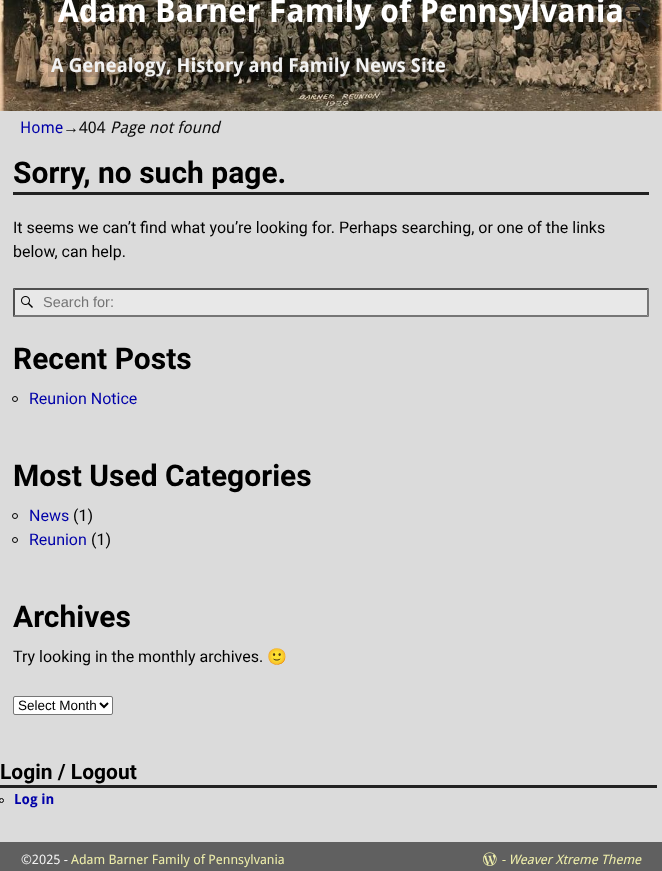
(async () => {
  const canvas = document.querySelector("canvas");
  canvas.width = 662;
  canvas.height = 871;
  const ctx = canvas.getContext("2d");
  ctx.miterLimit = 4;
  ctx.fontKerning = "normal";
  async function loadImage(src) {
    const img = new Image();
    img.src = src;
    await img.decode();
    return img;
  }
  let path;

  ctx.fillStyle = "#dbdbdb";
  ctx.fillRect(0, 0, 662, 871);
  ctx.drawImage(await loadImage("img/1.png"), 0, 0, 662, 111);
  ctx.fillStyle = "rgba(0, 0, 0, 0.15)";
  ctx.fillRect(53, 0, 575, 30);
  ctx.drawImage(await loadImage("img/2.png"), 622, 1, 28, 28);
  for (const [x, y, w, h, color] of [
    [48, 54, 401, 23, "rgba(0, 0, 0, 0.15)"],
    [13, 192, 636, 3, "#222222"],
    [13, 288, 636, 29, "#e8e8e8"],
  ]) {
    ctx.fillStyle = color;
    ctx.fillRect(x, y, w, h);
  }
  ctx.drawImage(await loadImage("img/3.png"), 21, 296, 12, 12);
  ctx.fillStyle = "#4f4f4f";
  path = new Path2D("M13 288H649L647 290H15Z");
  ctx.fill(path);
  ctx.fillStyle = "#767676";
  path = new Path2D("M649 288V317L647 315V290Z");
  ctx.fill(path);
  path = new Path2D("M649 317H13L15 315H647Z");
  ctx.fill(path);
  ctx.fillStyle = "#4f4f4f";
  path = new Path2D("M13 317V288L15 290V315Z");
  ctx.fill(path);
  ctx.beginPath();
  ctx.arc(15, 399, 2.5, 0, Math.PI * 2);
  ctx.strokeStyle = "#000000";
  ctx.stroke();
  ctx.beginPath();
  ctx.arc(15, 516, 2.5, 0, Math.PI * 2);
  ctx.stroke();
  ctx.beginPath();
  ctx.arc(15, 540, 2.5, 0, Math.PI * 2);
  ctx.stroke();
  ctx.fillStyle = "#ffffff";
  ctx.beginPath();
  ctx.roundRect(13.5, 696.5, 99, 18, 1.5);
  ctx.fill();
  ctx.strokeStyle = "#767676";
  ctx.stroke();
  path = new Path2D("M100 703L104 707L108 703");
  ctx.strokeStyle = "#000000";
  ctx.lineWidth = 2;
  ctx.stroke(path);
  ctx.fillStyle = "#222222";
  ctx.fillRect(0, 785, 657, 3);
  ctx.beginPath();
  ctx.arc(1.5, 800.5, 2, 0, Math.PI * 2);
  ctx.lineWidth = 1;
  ctx.stroke();
  ctx.fillStyle = "#606060";
  ctx.fillRect(0, 842, 662, 29);
  ctx.drawImage(await loadImage("img/4.png"), 483, 852, 14, 14);
  ctx.font = "bold 32px Droid Sans";
  ctx.fillStyle = "#ffffff";
  ctx.fillText("Adam Barner Family of Pennsylvania", 58, 22);
  ctx.font = "bold 19.2px Droid Sans";
  ctx.fillStyle = "#f2f2f2";
  ctx.fillText("A Genealogy, History and Family News Site", 51, 72);
  ctx.font = "16px Droid Sans";
  ctx.fillStyle = "#0000a8";
  ctx.fillText("Home", 20, 133);
  ctx.font = "16px Liberation Sans";
  ctx.fillStyle = "#0c0c0c";
  ctx.fillText("→", 63, 133);
  ctx.font = "16px Droid Sans";
  ctx.fillText("404", 79, 133);
  ctx.font = "italic 16px Droid Sans";
  ctx.fillText("Page not found", 110, 133);
  ctx.font = "bold 30px Roboto";
  ctx.fillStyle = "#000000";
  ctx.fillText("Sorry, no such page.", 13, 183);
  ctx.font = "16px Roboto";
  ctx.fillText("It seems we can’t find what you’re looking for. Perhaps searching, or one of the links", 13, 233);
  ctx.fillText("below, can help.", 13, 257);
  ctx.font = "14.5px Liberation Sans";
  ctx.fillStyle = "#757575";
  ctx.fillText("Search for:", 43, 307);
  ctx.font = "bold 30px Roboto";
  ctx.fillStyle = "#000000";
  ctx.fillText("Recent Posts", 13, 369);
  ctx.font = "16px Roboto";
  ctx.fillStyle = "#0000a8";
  ctx.fillText("Reunion Notice", 29, 404);
  ctx.font = "bold 30px Roboto";
  ctx.fillStyle = "#000000";
  ctx.fillText("Most Used Categories", 13, 486);
  ctx.font = "16px Roboto";
  ctx.fillStyle = "#0000a8";
  ctx.fillText("News", 29, 521);
  ctx.fillStyle = "#000000";
  ctx.fillText("(1)", 73, 521);
  ctx.fillStyle = "#0000a8";
  ctx.fillText("Reunion", 29, 545);
  ctx.fillStyle = "#000000";
  ctx.fillText("(1)", 91, 545);
  ctx.font = "bold 30px Roboto";
  ctx.fillText("Archives", 13, 627);
  ctx.font = "16px Roboto";
  ctx.fillText("Try looking in the monthly archives.", 13, 662);
  ctx.font = "16px Noto Color Emoji";
  ctx.fillText("🙂", 267, 662);
  ctx.font = "13.5px Liberation Sans";
  ctx.fillText("Select Month", 18, 710);
  ctx.font = "bold 21px Roboto";
  ctx.fillText("Login / Logout", 0, 779);
  ctx.font = "bold 14px Droid Sans";
  ctx.fillStyle = "#0000a8";
  ctx.fillText("Log in", 14, 804);
  ctx.font = "13px Droid Sans";
  ctx.fillStyle = "#f2f2f2";
  ctx.fillText("©2025 -", 21, 864);
  ctx.fillStyle = "#ededaa";
  ctx.fillText("Adam Barner Family of Pennsylvania", 71, 864);
  ctx.font = "italic 13px Droid Sans";
  ctx.fillText("- Weaver Xtreme Theme", 501, 864);
})();
